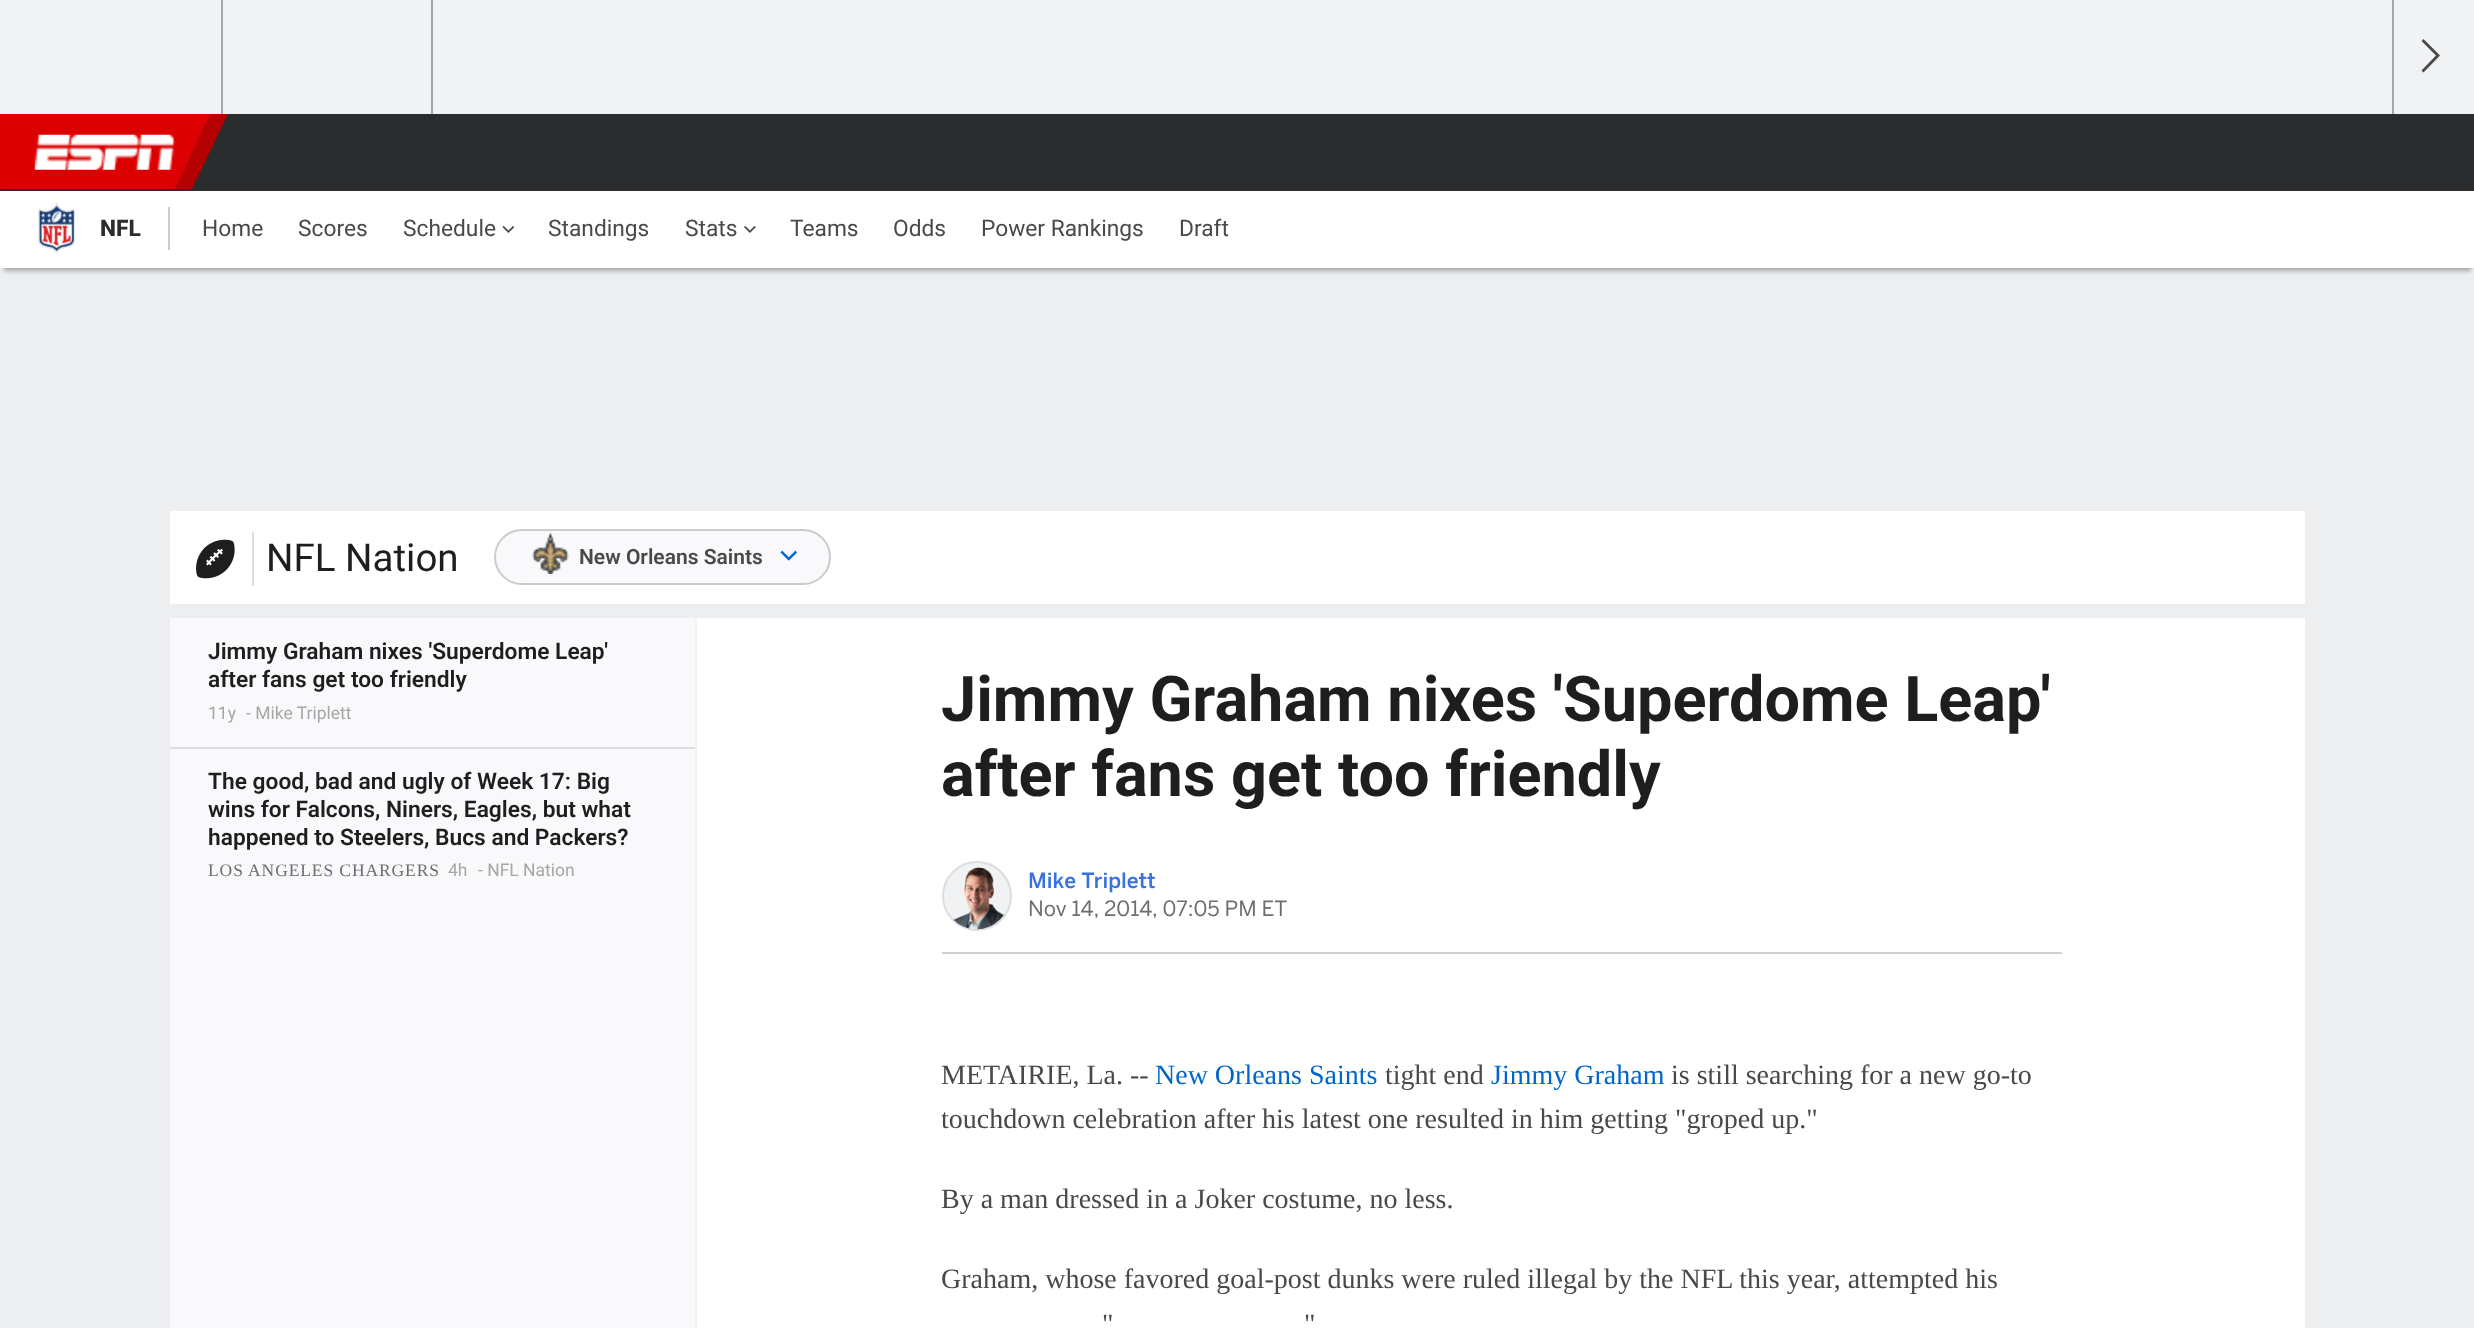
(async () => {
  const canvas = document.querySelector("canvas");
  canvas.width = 2474;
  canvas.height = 1328;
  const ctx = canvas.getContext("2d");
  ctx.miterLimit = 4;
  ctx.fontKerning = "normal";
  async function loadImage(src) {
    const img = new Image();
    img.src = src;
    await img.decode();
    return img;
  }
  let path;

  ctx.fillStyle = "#edeef0";
  ctx.fillRect(0, 0, 2474, 1328);
  for (const [x, y, w, h, color] of [
    [0, 0, 2474, 114, "#f1f2f3"],
    [221, 0, 2, 114, "#a5a6a7"],
    [431, 0, 2, 114, "#a5a6a7"],
    [2392, 0, 2, 114, "#a5a6a7"],
  ]) {
    ctx.fillStyle = color;
    ctx.fillRect(x, y, w, h);
  }
  ctx.fillStyle = "#48494a";
  path = new Path2D("M2423.5 39L2421.5 41L2436 55.5L2421.5 70.5L2423.5 72.5L2440 55.5Z");
  ctx.fill(path);
  ctx.fillStyle = "#2b2c2d";
  ctx.fillRect(0, 114, 2474, 77);
  ctx.fillStyle = "#b40000";
  path = new Path2D("M12 114H228L192 189H-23Z");
  ctx.fill(path);
  ctx.fillStyle = "#dd0000";
  path = new Path2D("M-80 114H210L175 189H-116Z");
  ctx.fill(path);
  ctx.drawImage(await loadImage("img/1.png"), 34, 134, 142, 36);
  ctx.fillStyle = "rgba(0, 0, 0, 0.3)";
  ctx.filter = "blur(2px)";
  ctx.beginPath();
  ctx.rect(4, 201, 2467, 70);
  ctx.fill();
  ctx.filter = "none";
  ctx.fillStyle = "#ffffff";
  ctx.beginPath();
  ctx.roundRect(0, 191, 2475, 77, 2);
  ctx.fill();
  ctx.drawImage(await loadImage("img/2.png"), 37, 202, 39, 52);
  ctx.fillStyle = "#cbccce";
  ctx.fillRect(168, 207, 2, 43);
  ctx.drawImage(await loadImage("img/3.png"), 502, 225, 13, 8);
  ctx.drawImage(await loadImage("img/4.png"), 744, 225, 12, 8);
  ctx.fillStyle = "#ffffff";
  ctx.fillRect(170, 511, 2135, 93);
  ctx.fillStyle = "#dcdddf";
  ctx.fillRect(252, 532, 2, 54);
  ctx.drawImage(await loadImage("img/5.png"), 196, 539, 39, 40);
  ctx.fillStyle = "#f9f9fb";
  ctx.beginPath();
  ctx.roundRect(495, 530, 335, 54, 27);
  ctx.fill();
  ctx.strokeStyle = "#cbccce";
  ctx.lineWidth = 2;
  ctx.stroke();
  ctx.drawImage(await loadImage("img/6.png"), 531, 531, 38, 43);
  ctx.drawImage(await loadImage("img/7.png"), 780, 550, 17, 11);
  for (const [x, y, w, h, color] of [
    [170, 618, 525, 710, "#f9f9fb"],
    [170, 747, 525, 2, "#dcdddf"],
    [695, 618, 2, 710, "#f1f2f3"],
    [697, 618, 1608, 710, "#ffffff"],
    [942, 952, 1120, 2, "#cecfcf"],
  ]) {
    ctx.fillStyle = color;
    ctx.fillRect(x, y, w, h);
  }
  ctx.fillStyle = "#f1f2f3";
  ctx.beginPath();
  ctx.arc(977, 896, 34, 0, Math.PI * 2);
  ctx.fill();
  ctx.strokeStyle = "#dcdddf";
  ctx.stroke();
  ctx.drawImage(await loadImage("img/8.png"), 953, 867, 51, 63);
  ctx.font = "800 22.75px Roboto";
  ctx.fillStyle = "#2b2c2d";
  ctx.fillText("NFL", 100, 236);
  ctx.font = "22.75px Roboto";
  ctx.fillStyle = "#48494a";
  for (const [text, x, y] of [
    ["Home", 202, 236],
    ["Scores", 298, 236],
    ["Schedule", 403, 236],
    ["Standings", 548, 236],
    ["Stats", 685, 236],
    ["Teams", 790, 236],
    ["Odds", 893, 236],
    ["Power Rankings", 981, 236],
    ["Draft", 1179, 236],
  ]) {
    ctx.fillText(text, x, y);
  }
  ctx.font = "38.5px Roboto";
  ctx.fillStyle = "#1d1e1f";
  ctx.fillText("NFL Nation", 266, 571);
  ctx.font = "600 21px Roboto";
  ctx.fillStyle = "#48494a";
  ctx.fillText("New Orleans Saints", 579, 564);
  ctx.font = "600 22.75px Roboto";
  ctx.fillStyle = "#1d1e1f";
  ctx.fillText("Jimmy Graham nixes 'Superdome Leap'", 208, 659);
  ctx.fillText("after fans get too friendly", 208, 687);
  ctx.font = "17.5px Roboto";
  ctx.fillStyle = "#a5a6a7";
  ctx.fillText("11y", 208, 719);
  ctx.fillText("- Mike Triplett", 246, 719);
  ctx.font = "600 22.75px Roboto";
  ctx.fillStyle = "#1d1e1f";
  for (const [text, x, y] of [
    ["The good, bad and ugly of Week 17: Big", 208, 789],
    ["wins for Falcons, Niners, Eagles, but what", 208, 817],
    ["happened to Steelers, Bucs and Packers?", 208, 845],
  ]) {
    ctx.fillText(text, x, y);
  }
  ctx.letterSpacing = "0.9px";
  ctx.font = "17.5px Liberation Serif";
  ctx.fillStyle = "#6c6d6f";
  ctx.fillText("LOS ANGELES CHARGERS", 208, 876);
  ctx.letterSpacing = "0px";
  ctx.font = "17.5px Roboto";
  ctx.fillStyle = "#a5a6a7";
  ctx.fillText("4h", 448, 876);
  ctx.fillText("- NFL Nation", 478, 876);
  ctx.font = "bold 63px Roboto";
  ctx.fillStyle = "#1d1e1f";
  ctx.fillText("Jimmy Graham nixes 'Superdome Leap'", 941, 721);
  ctx.fillText("after fans get too friendly", 941, 796);
  ctx.font = "500 21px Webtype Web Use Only";
  ctx.fillStyle = "#3772df";
  ctx.fillText("Mike Triplett", 1028, 888);
  ctx.font = "21px Webtype Web Use Only";
  ctx.fillStyle = "#6c6d6f";
  ctx.fillText("Nov 14, 2014, 07:05 PM ET", 1028, 916);
  ctx.font = "28px Liberation Serif";
  ctx.fillStyle = "#48494a";
  ctx.fillText("METAIRIE, La. --", 941, 1084);
  ctx.fillStyle = "#0066cc";
  ctx.fillText("New Orleans Saints", 1155, 1084);
  ctx.fillStyle = "#48494a";
  ctx.fillText("tight end", 1385, 1084);
  ctx.fillStyle = "#0066cc";
  ctx.fillText("Jimmy Graham", 1491, 1084);
  ctx.fillStyle = "#48494a";
  for (const [text, x, y] of [
    ["is still searching for a new go-to", 1671, 1084],
    ["touchdown celebration after his latest one resulted in him getting \"groped up.\"", 941, 1128],
    ["By a man dressed in a Joker costume, no less.", 941, 1208],
    ["Graham, whose favored goal-post dunks were ruled illegal by the NFL this year, attempted his", 941, 1288],
    ["\"", 1102, 1333],
    ["\"", 1304, 1333],
  ]) {
    ctx.fillText(text, x, y);
  }
})();
